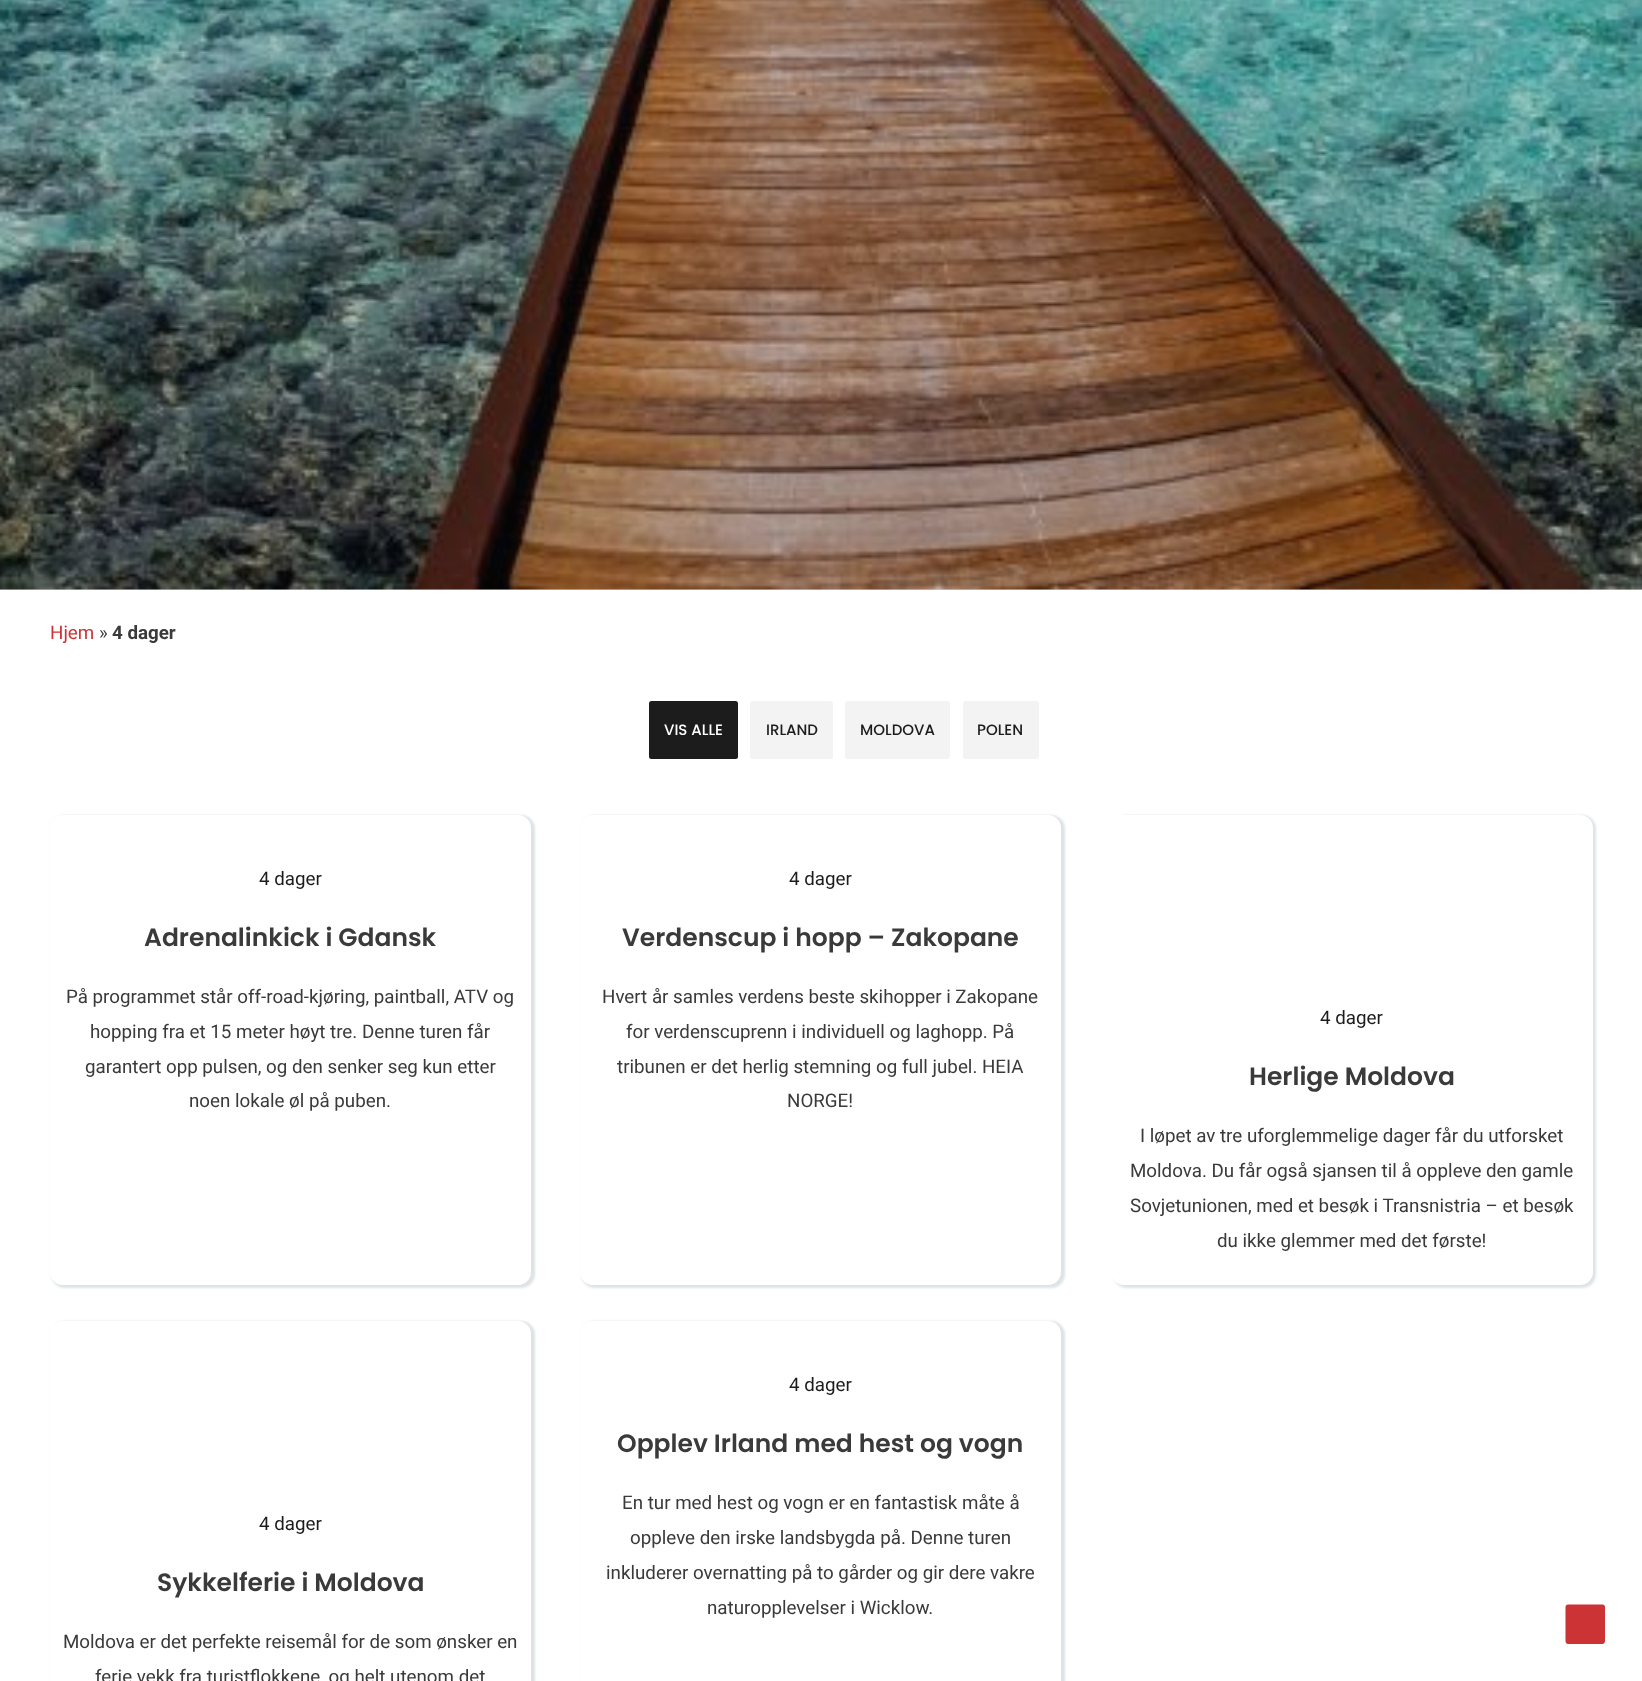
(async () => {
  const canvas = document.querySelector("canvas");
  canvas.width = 1642;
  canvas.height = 1681;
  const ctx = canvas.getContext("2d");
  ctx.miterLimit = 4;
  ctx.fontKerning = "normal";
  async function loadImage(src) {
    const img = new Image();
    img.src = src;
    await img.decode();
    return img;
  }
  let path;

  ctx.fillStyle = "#ffffff";
  ctx.fillRect(0, 0, 1642, 1681);
  ctx.fillStyle = "#dddddd";
  ctx.fillRect(0, 589, 1642, 1);
  ctx.drawImage(await loadImage("img/1.png"), 0, 0, 1642, 590);
  ctx.fillStyle = "#1c1c1c";
  ctx.beginPath();
  ctx.roundRect(649, 701, 89, 58, 2.5);
  ctx.fill();
  ctx.fillStyle = "#f3f3f3";
  ctx.beginPath();
  ctx.roundRect(750, 701, 83, 58, 2.5);
  ctx.fill();
  ctx.beginPath();
  ctx.roundRect(845, 701, 105, 58, 2.5);
  ctx.fill();
  ctx.beginPath();
  ctx.roundRect(963, 701, 76, 58, 2.5);
  ctx.fill();
  ctx.fillStyle = "#dee3e6";
  ctx.filter = "blur(1px)";
  ctx.beginPath();
  ctx.roundRect(51, 815, 484, 473, 14);
  ctx.fill();
  ctx.filter = "none";
  ctx.fillStyle = "#ffffff";
  ctx.beginPath();
  ctx.roundRect(50, 815, 481, 470, 13);
  ctx.fill();
  ctx.fillStyle = "#dee3e6";
  ctx.filter = "blur(1px)";
  ctx.beginPath();
  ctx.roundRect(581, 815, 484, 473, 14);
  ctx.fill();
  ctx.filter = "none";
  ctx.fillStyle = "#ffffff";
  ctx.beginPath();
  ctx.roundRect(580, 815, 481, 470, 13);
  ctx.fill();
  ctx.fillStyle = "#dee3e6";
  ctx.filter = "blur(1px)";
  ctx.beginPath();
  ctx.roundRect(1113, 815, 483, 473, 14);
  ctx.fill();
  ctx.filter = "none";
  ctx.fillStyle = "#ffffff";
  ctx.beginPath();
  ctx.roundRect(1111, 815, 482, 470, 13);
  ctx.fill();
  ctx.fillStyle = "#dee3e6";
  ctx.filter = "blur(1px)";
  ctx.beginPath();
  ctx.roundRect(51, 1321, 484, 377, 14);
  ctx.fill();
  ctx.filter = "none";
  ctx.fillStyle = "#ffffff";
  ctx.beginPath();
  ctx.roundRect(50, 1321, 481, 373, 13);
  ctx.fill();
  ctx.fillStyle = "#dee3e6";
  ctx.filter = "blur(1px)";
  ctx.beginPath();
  ctx.roundRect(581, 1321, 484, 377, 14);
  ctx.fill();
  ctx.filter = "none";
  ctx.fillStyle = "#ffffff";
  ctx.beginPath();
  ctx.roundRect(580, 1321, 481, 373, 13);
  ctx.fill();
  ctx.fillStyle = "#cb3334";
  path = new Path2D("M1602.5 1644H1568C1566.5 1644 1565.5 1642.5 1565.5 1641V1607C1565.5 1605.5 1566.5 1604.5 1568 1604.5H1602.5C1604 1604.5 1605 1605.5 1605 1607V1641C1605 1642.5 1604 1644 1602.5 1644Z");
  ctx.fill(path);
  ctx.font = "18.75px Roboto";
  ctx.fillText("Hjem", 50, 639);
  ctx.fillStyle = "#3a3a3a";
  ctx.fillText("»", 99, 639);
  ctx.font = "bold 18.75px Roboto";
  ctx.fillText("4 dager", 112, 639);
  ctx.font = "500 15px Poppins";
  ctx.fillStyle = "#ffffff";
  ctx.fillText("VIS ALLE", 664, 735);
  ctx.fillStyle = "#1c1c1c";
  for (const [text, x, y] of [
    ["IRLAND", 766, 735],
    ["MOLDOVA", 860, 735],
    ["POLEN", 977, 735],
  ]) {
    ctx.fillText(text, x, y);
  }
  ctx.font = "18.75px Roboto";
  ctx.fillText("4 dager", 259, 885);
  ctx.font = "600 25px Poppins";
  ctx.fillStyle = "#3a3a3a";
  ctx.fillText("Adrenalinkick i Gdansk", 144, 946);
  ctx.font = "18.75px Roboto";
  for (const [text, x, y] of [
    ["På programmet står off-road-kjøring, paintball, ATV og", 66, 1003],
    ["hopping fra et 15 meter høyt tre. Denne turen får", 90, 1038],
    ["garantert opp pulsen, og den senker seg kun etter", 85, 1073],
    ["noen lokale øl på puben.", 189, 1107],
  ]) {
    ctx.fillText(text, x, y);
  }
  ctx.fillStyle = "#1c1c1c";
  ctx.fillText("4 dager", 789, 885);
  ctx.font = "600 25px Poppins";
  ctx.fillStyle = "#3a3a3a";
  ctx.fillText("Verdenscup i hopp – Zakopane", 622, 946);
  ctx.font = "18.75px Roboto";
  for (const [text, x, y] of [
    ["Hvert år samles verdens beste skihopper i Zakopane", 602, 1003],
    ["for verdenscuprenn i individuell og laghopp. På", 626, 1038],
    ["tribunen er det herlig stemning og full jubel. HEIA", 617, 1073],
    ["NORGE!", 787, 1107],
  ]) {
    ctx.fillText(text, x, y);
  }
  ctx.fillStyle = "#1c1c1c";
  ctx.fillText("4 dager", 1320, 1024);
  ctx.font = "600 25px Poppins";
  ctx.fillStyle = "#3a3a3a";
  ctx.fillText("Herlige Moldova", 1249, 1085);
  ctx.font = "18.75px Roboto";
  for (const [text, x, y] of [
    ["I løpet av tre uforglemmelige dager får du utforsket", 1140, 1142],
    ["Moldova. Du får også sjansen til å oppleve den gamle", 1130, 1177],
    ["Sovjetunionen, med et besøk i Transnistria – et besøk", 1130, 1212],
    ["du ikke glemmer med det første!", 1217, 1247],
  ]) {
    ctx.fillText(text, x, y);
  }
  ctx.fillStyle = "#1c1c1c";
  ctx.fillText("4 dager", 259, 1530);
  ctx.font = "600 25px Poppins";
  ctx.fillStyle = "#3a3a3a";
  ctx.fillText("Sykkelferie i Moldova", 157, 1591);
  ctx.font = "18.75px Roboto";
  ctx.fillText("Moldova er det perfekte reisemål for de som ønsker en", 63, 1648);
  ctx.fillText("ferie vekk fra turistflokkene, og helt utenom det", 95, 1683);
  ctx.fillStyle = "#1c1c1c";
  ctx.fillText("4 dager", 789, 1391);
  ctx.font = "600 25px Poppins";
  ctx.fillStyle = "#3a3a3a";
  ctx.fillText("Opplev Irland med hest og vogn", 617, 1452);
  ctx.font = "18.75px Roboto";
  for (const [text, x, y] of [
    ["En tur med hest og vogn er en fantastisk måte å", 622, 1509],
    ["oppleve den irske landsbygda på. Denne turen", 630, 1544],
    ["inkluderer overnatting på to gårder og gir dere vakre", 606, 1579],
    ["naturopplevelser i Wicklow.", 707, 1614],
  ]) {
    ctx.fillText(text, x, y);
  }
})();
